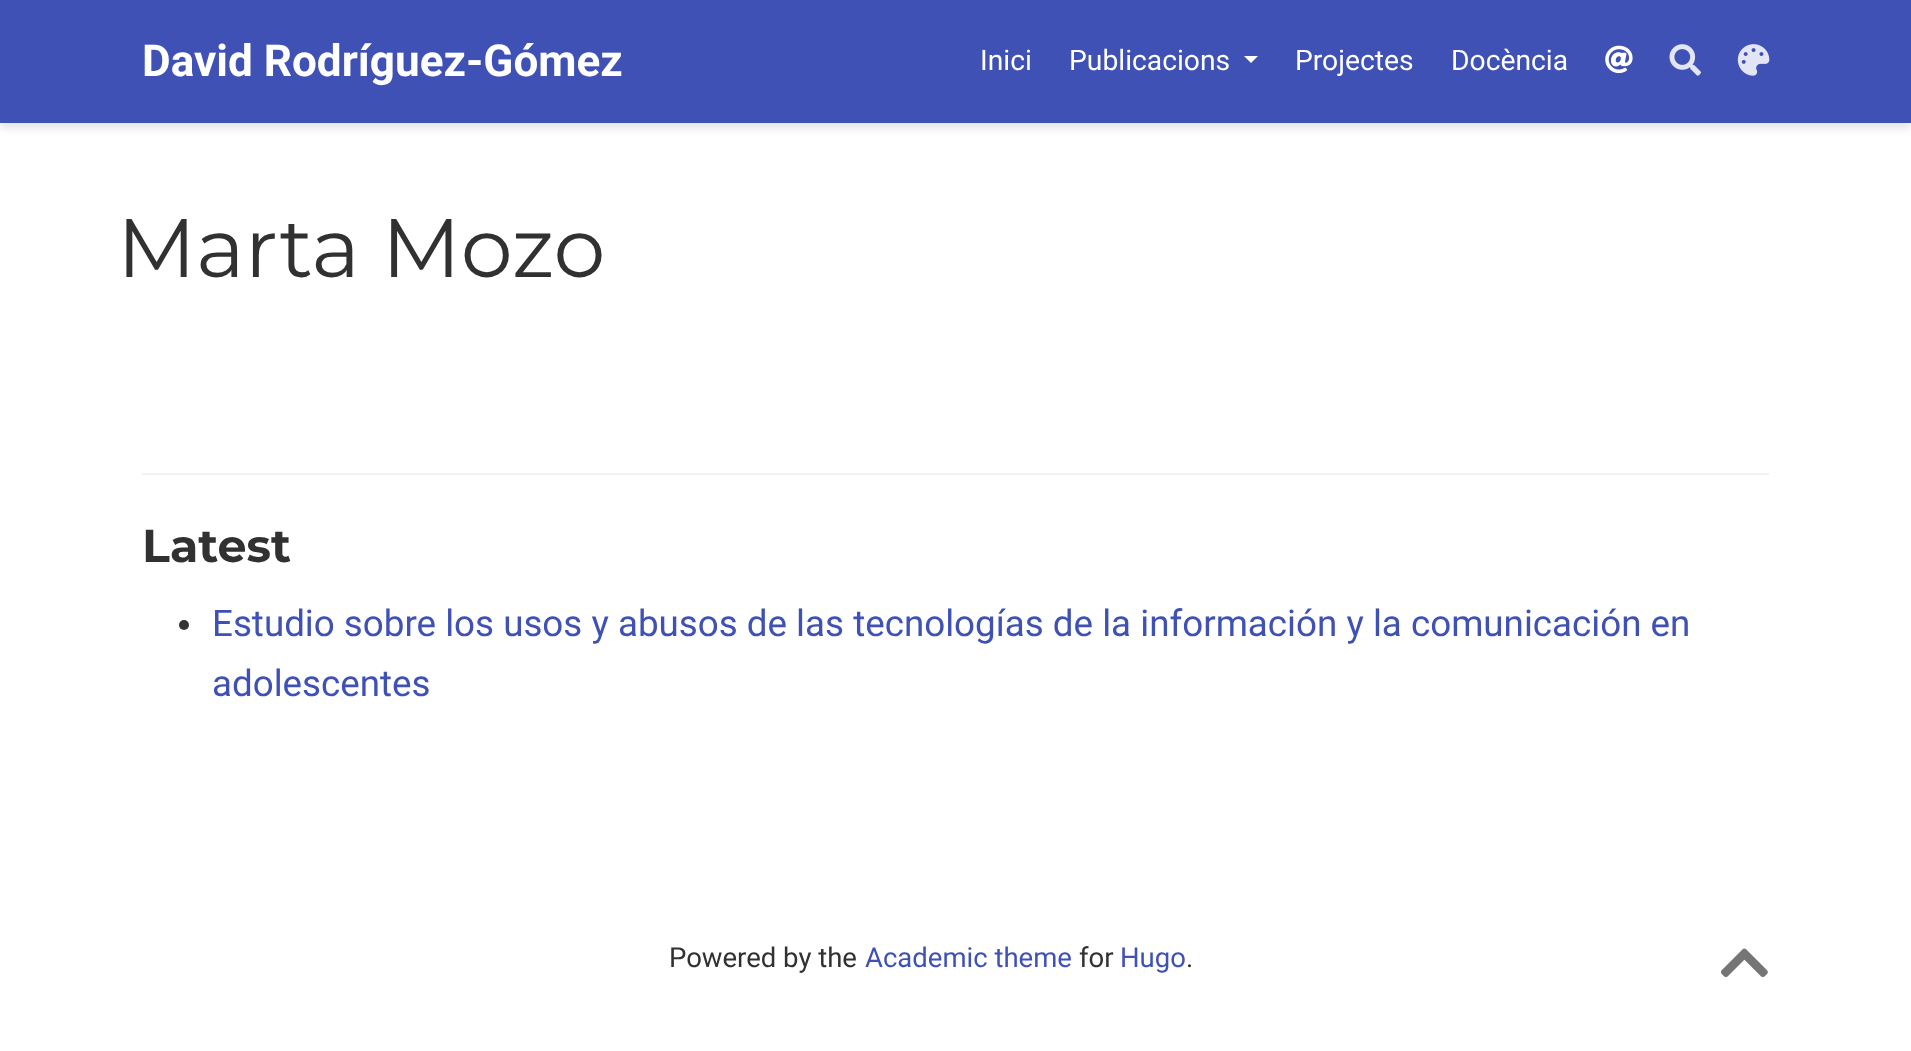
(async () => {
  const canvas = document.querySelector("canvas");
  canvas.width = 1911;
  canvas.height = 1051;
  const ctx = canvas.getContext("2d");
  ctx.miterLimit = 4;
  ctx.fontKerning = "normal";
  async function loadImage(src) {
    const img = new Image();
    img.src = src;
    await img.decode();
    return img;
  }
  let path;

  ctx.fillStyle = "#ffffff";
  ctx.fillRect(0, 0, 1911, 1051);
  ctx.fillStyle = "rgba(0, 0, 0, 0.11)";
  ctx.filter = "blur(4.5px)";
  ctx.beginPath();
  ctx.rect(0, 5, 1911, 123);
  ctx.fill();
  ctx.filter = "none";
  ctx.fillStyle = "#3f51b5";
  ctx.fillRect(0, 0, 1911, 123);
  ctx.fillStyle = "#ffffff";
  path = new Path2D("M1244 56H1258L1251 63Z");
  ctx.fill(path);
  ctx.drawImage(await loadImage("img/1.png"), 1605, 45, 28, 29);
  ctx.drawImage(await loadImage("img/2.png"), 1669, 44, 32, 32);
  ctx.drawImage(await loadImage("img/3.png"), 1737, 44, 33, 32);
  ctx.fillStyle = "#f2f2f2";
  ctx.fillRect(142, 473, 1627, 2);
  ctx.fillStyle = "#333333";
  ctx.beginPath();
  ctx.arc(184, 625, 5, 0, Math.PI * 2);
  ctx.fill();
  ctx.drawImage(await loadImage("img/4.png"), 1721, 948, 47, 29);
  ctx.font = "bold 44.1px Roboto";
  ctx.fillStyle = "#ffffff";
  ctx.fillText("David Rodríguez-Gómez", 142, 76);
  ctx.font = "28.25px Roboto";
  for (const [text, x, y] of [
    ["Inici", 980, 70],
    ["Publicacions", 1069, 70],
    ["Projectes", 1295, 70],
    ["Docència", 1451, 70],
  ]) {
    ctx.fillText(text, x, y);
  }
  ctx.font = "82.75px Montserrat";
  ctx.fillStyle = "#313131";
  ctx.fillText("Marta Mozo", 117, 277);
  ctx.font = "bold 46px Montserrat";
  ctx.fillText("Latest", 142, 562);
  ctx.font = "36.75px Roboto";
  ctx.fillStyle = "#3f51b5";
  ctx.fillText("Estudio sobre los usos y abusos de las tecnologías de la información y la comunicación en", 212, 636);
  ctx.fillText("adolescentes", 212, 696);
  ctx.font = "27.5px Roboto";
  ctx.fillStyle = "#313131";
  ctx.fillText("Powered by the", 669, 967);
  ctx.fillStyle = "#3f51b5";
  ctx.fillText("Academic theme", 865, 967);
  ctx.fillStyle = "#313131";
  ctx.fillText("for", 1079, 967);
  ctx.fillStyle = "#3f51b5";
  ctx.fillText("Hugo", 1120, 967);
  ctx.fillStyle = "#313131";
  ctx.fillText(".", 1186, 967);
})();
